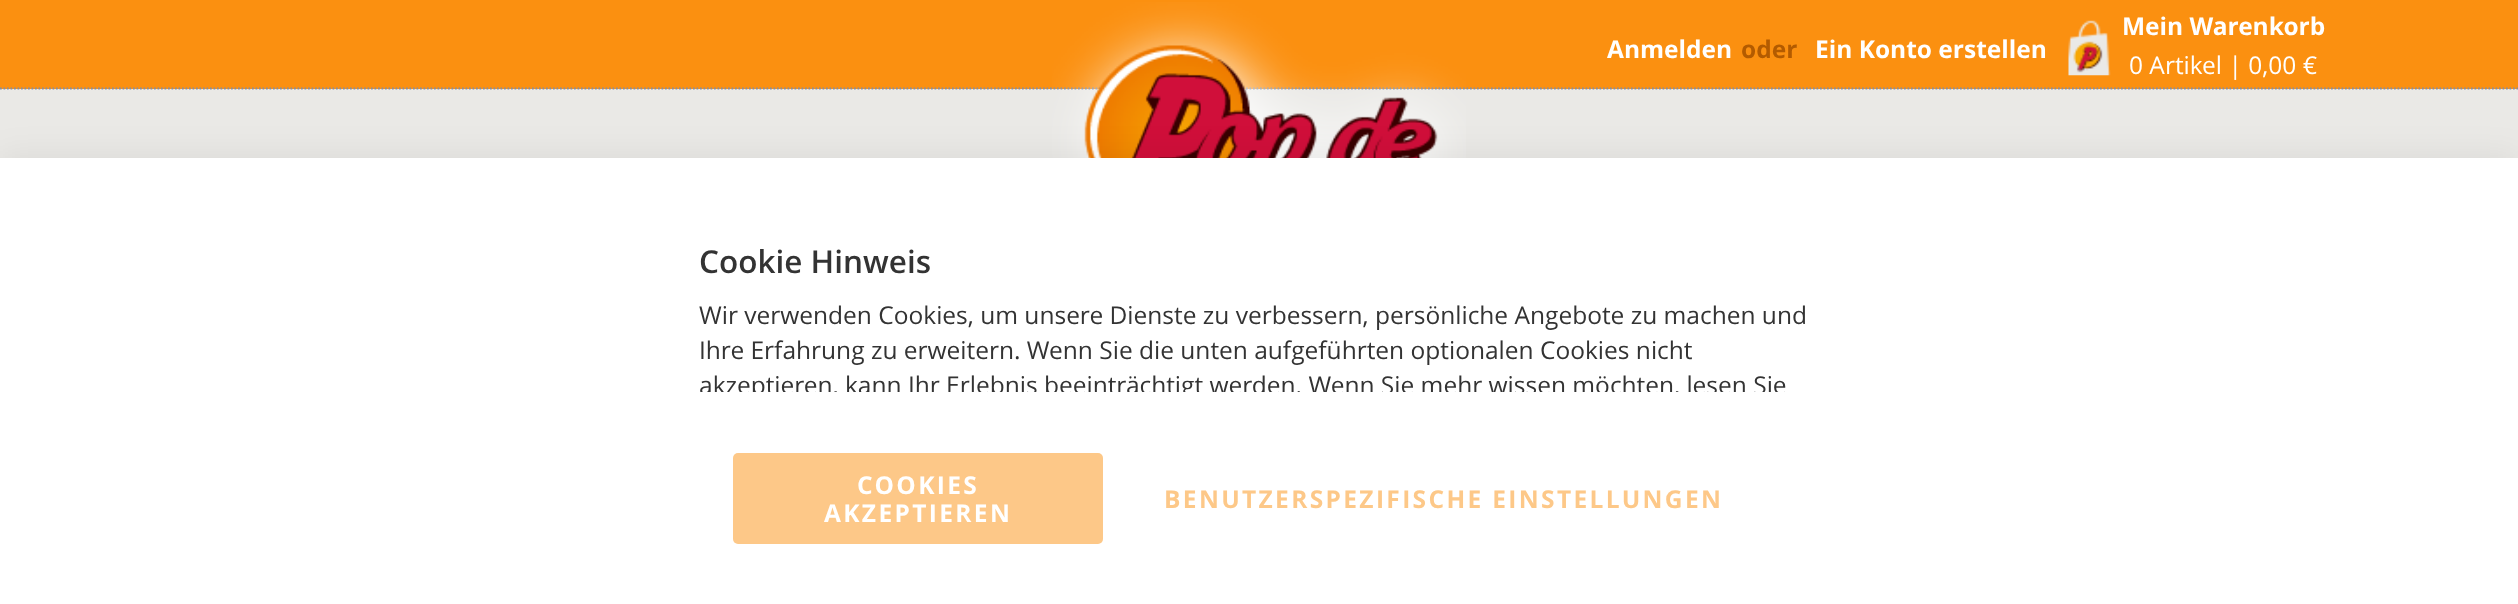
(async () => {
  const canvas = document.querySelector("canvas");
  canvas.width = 2518;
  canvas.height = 604;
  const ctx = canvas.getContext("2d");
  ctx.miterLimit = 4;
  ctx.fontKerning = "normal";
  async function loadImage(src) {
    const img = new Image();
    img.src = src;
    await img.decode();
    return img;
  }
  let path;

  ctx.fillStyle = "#eae9e6";
  ctx.fillRect(0, 0, 2518, 604);
  ctx.fillStyle = "#fb9010";
  ctx.fillRect(0, 0, 2518, 89);
  path = new Path2D("M0 88.5H2518");
  ctx.strokeStyle = "#878d9e";
  ctx.lineWidth = 1.8;
  ctx.setLineDash([1.75, 1.75]);
  ctx.stroke(path);
  ctx.drawImage(await loadImage("img/1.png"), 1052, 2, 414, 156);
  ctx.drawImage(await loadImage("img/2.png"), 2068, 20, 43, 56);
  ctx.fillStyle = "rgba(0, 0, 0, 0.06)";
  ctx.filter = "blur(16px)";
  ctx.beginPath();
  ctx.rect(0, 154, 2518, 448);
  ctx.fill();
  ctx.filter = "none";
  ctx.fillStyle = "#ffffff";
  ctx.fillRect(0, 158, 2518, 446);
  ctx.fillStyle = "#fdc888";
  ctx.beginPath();
  ctx.roundRect(733, 453, 370, 91, 5);
  ctx.fill();
  ctx.font = "bold 24.5px Open Sans";
  ctx.fillStyle = "#ffffff";
  ctx.fillText("Anmelden", 1607, 58);
  ctx.fillStyle = "#b35b00";
  ctx.fillText("oder", 1741, 58);
  ctx.fillStyle = "#ffffff";
  ctx.fillText("Ein Konto erstellen", 1815, 58);
  ctx.fillText("Mein Warenkorb", 2122, 35);
  ctx.font = "24.5px Open Sans";
  ctx.fillText("0 Artikel | 0,00 €", 2129, 74);
  ctx.font = "600 31.5px Open Sans";
  ctx.fillStyle = "#333333";
  ctx.fillText("Cookie Hinweis", 699, 273);
  ctx.font = "24.5px Open Sans";
  ctx.fillText("Wir verwenden Cookies, um unsere Dienste zu verbessern, persönliche Angebote zu machen und", 699, 324);
  ctx.fillText("Ihre Erfahrung zu erweitern. Wenn Sie die unten aufgeführten optionalen Cookies nicht", 699, 359);
  ctx.save();
  ctx.beginPath();
  ctx.rect(700, 210, 1120, 182);
  ctx.clip();
  ctx.fillText("akzeptieren, kann Ihr Erlebnis beeinträchtigt werden. Wenn Sie mehr wissen möchten, lesen Sie", 699, 394);
  ctx.restore();
  ctx.letterSpacing = "2.35px";
  ctx.font = "bold 24.5px Open Sans";
  ctx.fillStyle = "#ffffff";
  ctx.fillText("COOKIES", 857, 494);
  ctx.fillText("AKZEPTIEREN", 824, 522);
  ctx.fillStyle = "#fdc888";
  ctx.fillText("BENUTZERSPEZIFISCHE EINSTELLUNGEN", 1164, 508);
})();
